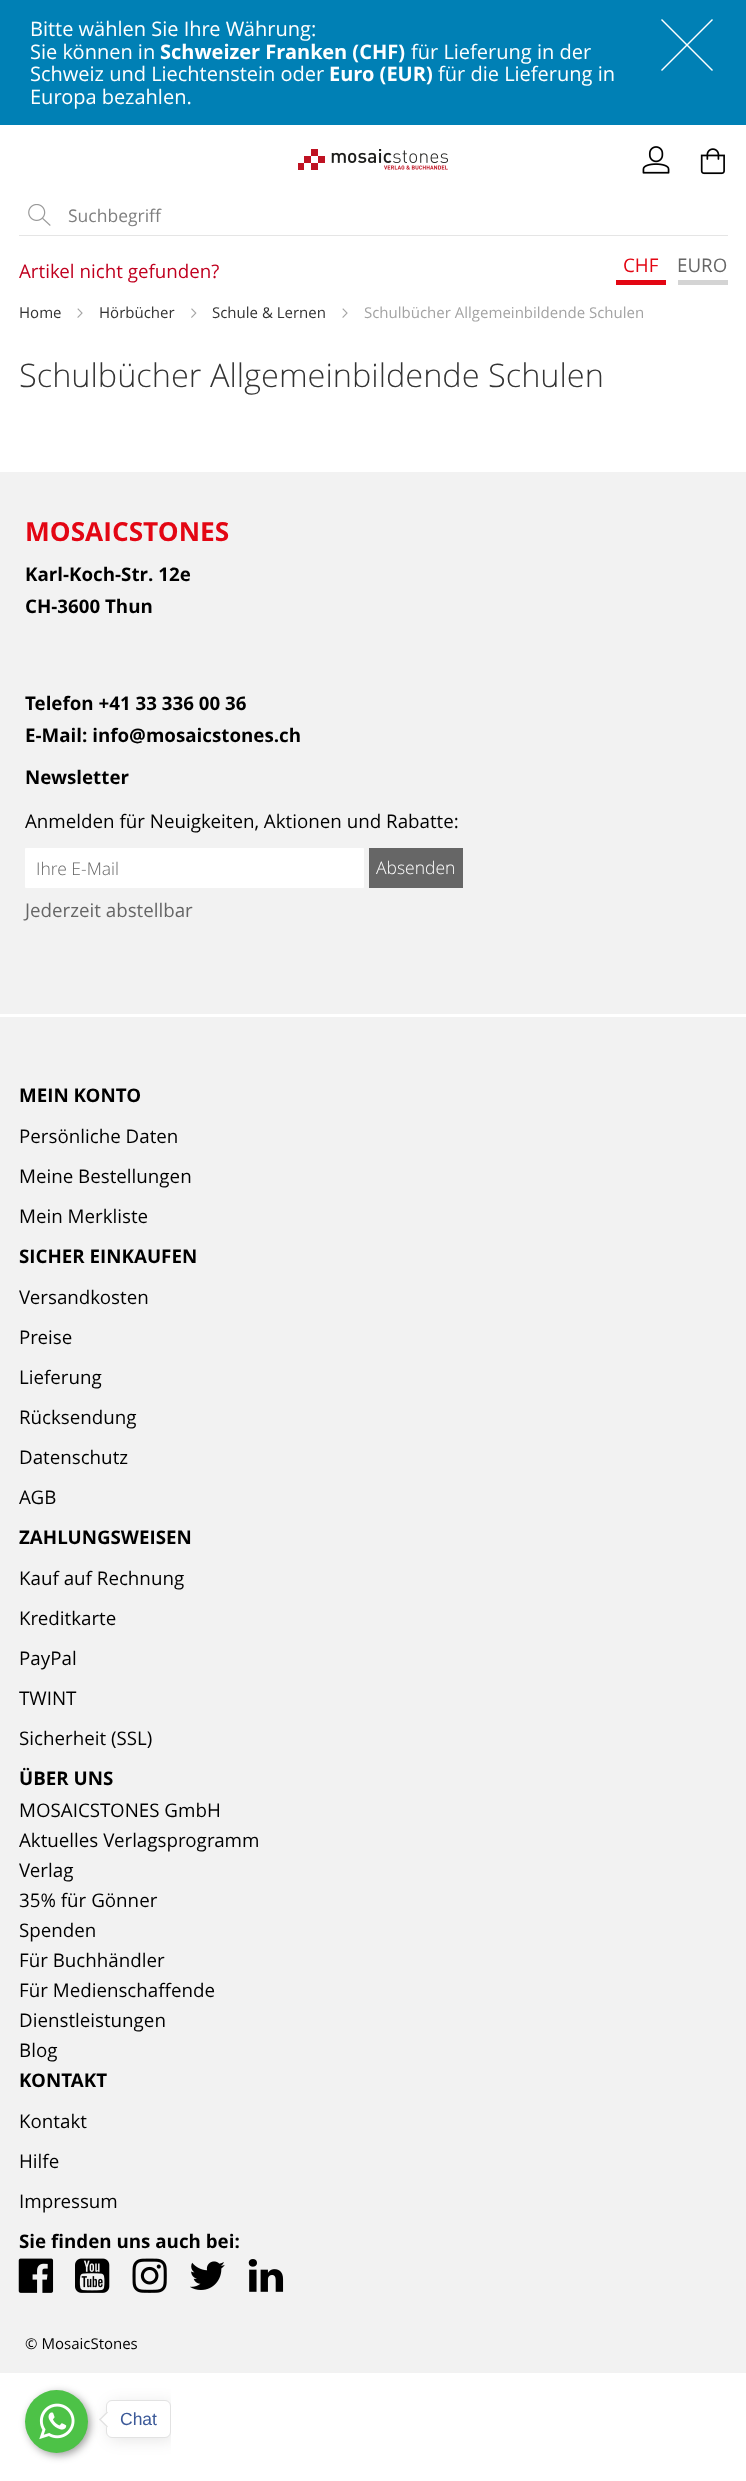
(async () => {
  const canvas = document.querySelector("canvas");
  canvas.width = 746;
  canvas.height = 2481;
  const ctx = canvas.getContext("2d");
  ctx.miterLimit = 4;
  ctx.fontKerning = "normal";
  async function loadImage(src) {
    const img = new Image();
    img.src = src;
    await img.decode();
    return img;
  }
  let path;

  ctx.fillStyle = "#ffffff";
  ctx.fillRect(0, 0, 746, 2481);
  ctx.fillStyle = "#0080b5";
  ctx.fillRect(0, 0, 746, 125);
  ctx.fillStyle = "#ffffff";
  path = new Path2D("M712 71L661 20L662 19L713 70Z");
  ctx.fill(path);
  path = new Path2D("M662 71L661 70L712 19L713 20Z");
  ctx.fill(path);
  ctx.drawImage(await loadImage("img/1.png"), 298, 149, 150, 21);
  ctx.drawImage(await loadImage("img/2.png"), 642, 146, 28, 28);
  ctx.drawImage(await loadImage("img/3.png"), 700, 148, 25, 27);
  ctx.drawImage(await loadImage("img/4.png"), 28, 204, 23, 22);
  for (const [x, y, w, h, color] of [
    [19, 235, 709, 1, "#e5e5e5"],
    [616, 280, 50, 5, "#e30613"],
    [678, 280, 50, 5, "#d4d4d4"],
  ]) {
    ctx.fillStyle = color;
    ctx.fillRect(x, y, w, h);
  }
  ctx.drawImage(await loadImage("img/5.png"), 77, 308, 6, 10);
  ctx.drawImage(await loadImage("img/6.png"), 191, 308, 6, 10);
  ctx.drawImage(await loadImage("img/5.png"), 342, 308, 6, 10);
  ctx.fillStyle = "#f2f2f2";
  ctx.fillRect(0, 472, 746, 1901);
  ctx.fillStyle = "#ffffff";
  ctx.fillRect(0, 1014, 746, 3);
  ctx.beginPath();
  ctx.roundRect(25, 848, 339, 40, 1);
  ctx.fill();
  ctx.fillStyle = "#666666";
  ctx.fillRect(369, 848, 94, 40);
  ctx.drawImage(await loadImage("img/7.png"), 18, 2258, 36, 35);
  ctx.drawImage(await loadImage("img/8.png"), 75, 2258, 35, 35);
  ctx.drawImage(await loadImage("img/9.png"), 132, 2258, 35, 35);
  ctx.drawImage(await loadImage("img/10.png"), 190, 2261, 35, 29);
  ctx.drawImage(await loadImage("img/11.png"), 248, 2259, 36, 33);
  ctx.fillStyle = "rgba(0, 0, 0, 0.4)";
  ctx.filter = "blur(4px)";
  ctx.beginPath();
  ctx.roundRect(28, 2393, 62, 62, 31);
  ctx.fill();
  ctx.filter = "none";
  ctx.save();
  ctx.beginPath();
  ctx.rect(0, 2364, 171, 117);
  ctx.clip();
  ctx.fillStyle = "rgba(0, 0, 0, 0.1)";
  ctx.filter = "blur(8px)";
  ctx.beginPath();
  ctx.roundRect(109, 2403, 65, 37, 6);
  ctx.fill();
  ctx.filter = "none";
  ctx.restore();
  ctx.fillStyle = "#4dc247";
  ctx.beginPath();
  ctx.arc(56.5, 2421.5, 31.5, 0, Math.PI * 2);
  ctx.fill();
  ctx.drawImage(await loadImage("img/12.png"), 39, 2403, 36, 37);
  ctx.fillStyle = "#ffffff";
  ctx.beginPath();
  ctx.roundRect(106.5, 2400.5, 64, 37, 5.5);
  ctx.fill();
  ctx.strokeStyle = "#e2e2e2";
  ctx.stroke();
  path = new Path2D("M99 2419.5L107 2411.5L115 2419.5L107 2427.5Z");
  ctx.fill(path);
  ctx.fillStyle = "#e2e2e2";
  path = new Path2D("M99 2419.5L107 2411.5L108 2412.5L100 2420.5Z");
  ctx.fill(path);
  path = new Path2D("M99 2419.5L100 2418.5L108 2426.5L107 2427.5Z");
  ctx.fill(path);
  ctx.font = "20px Open Sans";
  ctx.fillStyle = "#ffffff";
  ctx.fillText("Bitte wählen Sie Ihre Währung:", 30, 36);
  ctx.fillText("Sie können in", 30, 59);
  ctx.font = "bold 20px Open Sans";
  ctx.fillText("Schweizer Franken (CHF)", 160, 59);
  ctx.font = "20px Open Sans";
  ctx.fillText("für Lieferung in der", 411, 59);
  ctx.fillText("Schweiz und Liechtenstein oder", 30, 81);
  ctx.font = "bold 20px Open Sans";
  ctx.fillText("Euro (EUR)", 329, 81);
  ctx.font = "20px Open Sans";
  ctx.fillText("für die Lieferung in", 438, 81);
  ctx.fillText("Europa bezahlen.", 30, 104);
  ctx.font = "17.5px Open Sans";
  ctx.fillStyle = "#7f7f7f";
  ctx.fillText("Suchbegriff", 68, 222);
  ctx.font = "18.75px Open Sans";
  ctx.fillStyle = "#c0001f";
  ctx.fillText("Artikel nicht gefunden?", 19, 278);
  ctx.fillStyle = "#e30613";
  ctx.fillText("CHF", 623, 272);
  ctx.fillStyle = "#666666";
  ctx.fillText("EURO", 677, 272);
  ctx.font = "15px Open Sans";
  ctx.fillStyle = "#333333";
  for (const [text, x, y] of [
    ["Home", 19, 318],
    ["Hörbücher", 99, 318],
    ["Schule & Lernen", 212, 318],
  ]) {
    ctx.fillText(text, x, y);
  }
  ctx.fillStyle = "#a3a3a3";
  ctx.fillText("Schulbücher Allgemeinbildende Schulen", 364, 318);
  ctx.font = "300 32.5px Open Sans";
  ctx.fillStyle = "#333333";
  ctx.fillText("Schulbücher Allgemeinbildende Schulen", 19, 387);
  ctx.font = "bold 26.25px Open Sans";
  ctx.fillStyle = "#e30613";
  ctx.fillText("MOSAICSTONES", 25, 541);
  ctx.font = "bold 18.75px Open Sans";
  ctx.fillStyle = "#000000";
  for (const [text, x, y] of [
    ["Karl-Koch-Str. 12e", 25, 581],
    ["CH-3600 Thun", 25, 613],
    ["Telefon +41 33 336 00 36", 25, 710],
    ["E-Mail: info@mosaicstones.ch", 25, 742],
    ["Newsletter", 25, 784],
  ]) {
    ctx.fillText(text, x, y);
  }
  ctx.font = "18.75px Open Sans";
  ctx.fillText("Anmelden für Neuigkeiten, Aktionen und Rabatte:", 25, 828);
  ctx.font = "300 17.5px Open Sans";
  ctx.fillStyle = "#666666";
  ctx.fillText("Ihre E-Mail", 36, 875);
  ctx.fillStyle = "#ffffff";
  ctx.fillText("Absenden", 376, 874);
  ctx.font = "18.75px Open Sans";
  ctx.fillStyle = "#666666";
  ctx.fillText("Jederzeit abstellbar", 25, 917);
  ctx.font = "bold 18.75px Open Sans";
  ctx.fillStyle = "#000000";
  ctx.fillText("MEIN KONTO", 19, 1102);
  ctx.font = "18.75px Open Sans";
  for (const [text, x, y] of [
    ["Persönliche Daten", 19, 1143],
    ["Meine Bestellungen", 19, 1183],
    ["Mein Merkliste", 19, 1223],
  ]) {
    ctx.fillText(text, x, y);
  }
  ctx.font = "bold 18.75px Open Sans";
  ctx.fillText("SICHER EINKAUFEN", 19, 1263);
  ctx.font = "18.75px Open Sans";
  for (const [text, x, y] of [
    ["Versandkosten", 19, 1304],
    ["Preise", 19, 1344],
    ["Lieferung", 19, 1384],
    ["Rücksendung", 19, 1424],
    ["Datenschutz", 19, 1464],
    ["AGB", 19, 1504],
  ]) {
    ctx.fillText(text, x, y);
  }
  ctx.font = "bold 18.75px Open Sans";
  ctx.fillText("ZAHLUNGSWEISEN", 19, 1544);
  ctx.font = "18.75px Open Sans";
  for (const [text, x, y] of [
    ["Kauf auf Rechnung", 19, 1585],
    ["Kreditkarte", 19, 1625],
    ["PayPal", 19, 1665],
    ["TWINT", 19, 1705],
    ["Sicherheit (SSL)", 19, 1745],
  ]) {
    ctx.fillText(text, x, y);
  }
  ctx.font = "bold 18.75px Open Sans";
  ctx.fillText("ÜBER UNS", 19, 1785);
  ctx.font = "18.75px Open Sans";
  for (const [text, x, y] of [
    ["MOSAICSTONES GmbH", 19, 1817],
    ["Aktuelles Verlagsprogramm", 19, 1847],
    ["Verlag", 19, 1877],
    ["35% für Gönner", 19, 1907],
    ["Spenden", 19, 1937],
    ["Für Buchhändler", 19, 1967],
    ["Für Medienschaffende", 19, 1997],
    ["Dienstleistungen", 19, 2027],
    ["Blog", 19, 2057],
  ]) {
    ctx.fillText(text, x, y);
  }
  ctx.font = "bold 18.75px Open Sans";
  ctx.fillText("KONTAKT", 19, 2087);
  ctx.font = "18.75px Open Sans";
  for (const [text, x, y] of [
    ["Kontakt", 19, 2128],
    ["Hilfe", 19, 2168],
    ["Impressum", 19, 2208],
  ]) {
    ctx.fillText(text, x, y);
  }
  ctx.font = "bold 18.75px Open Sans";
  ctx.fillText("Sie finden uns auch bei:", 19, 2248);
  ctx.font = "15px Open Sans";
  ctx.fillText("© MosaicStones", 25, 2349);
  ctx.font = "17.5px Liberation Sans";
  ctx.fillStyle = "#3b5998";
  ctx.fillText("Chat", 120, 2425);
})();
